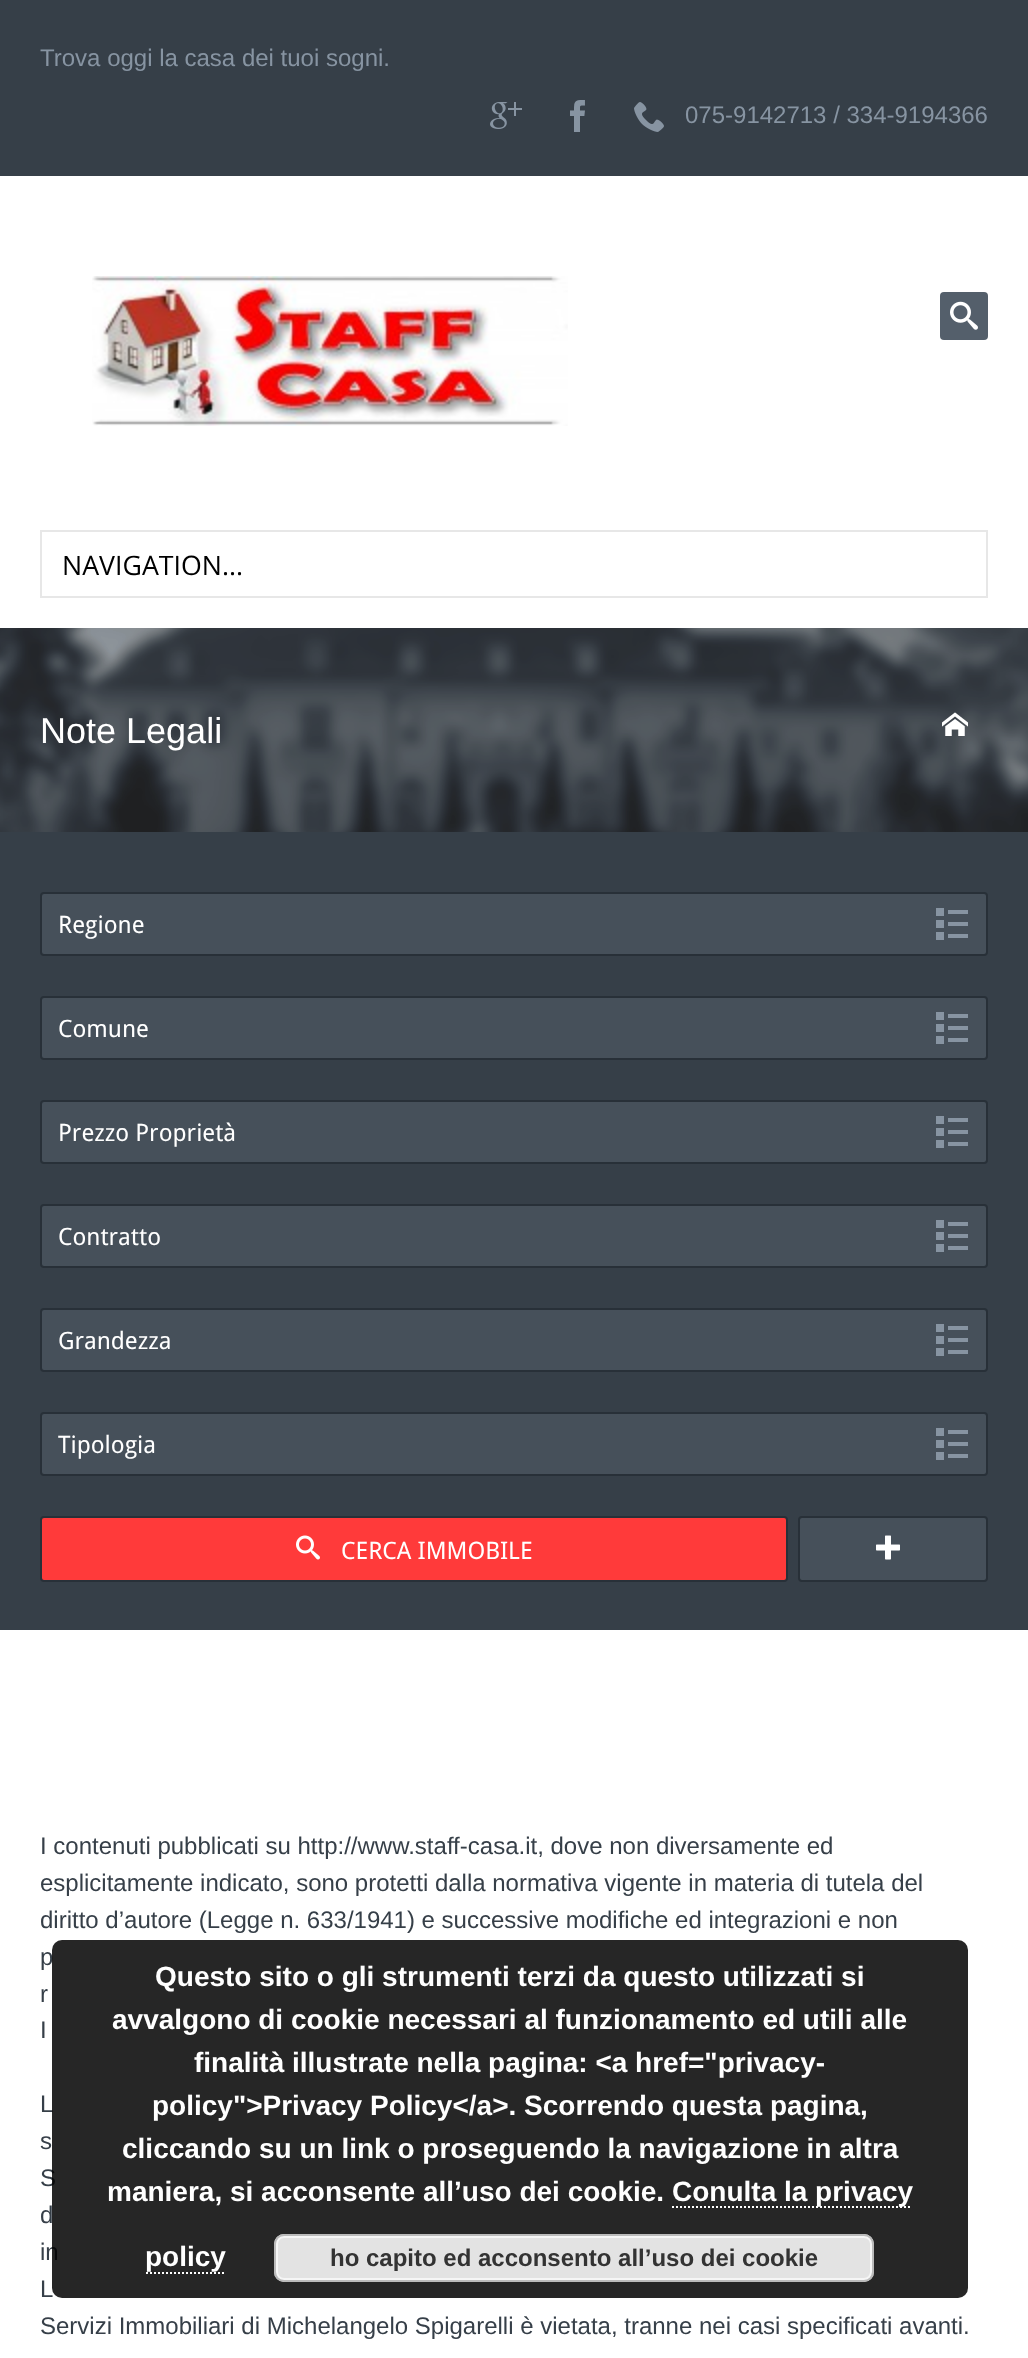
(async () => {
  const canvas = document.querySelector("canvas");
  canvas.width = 1028;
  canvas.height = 2358;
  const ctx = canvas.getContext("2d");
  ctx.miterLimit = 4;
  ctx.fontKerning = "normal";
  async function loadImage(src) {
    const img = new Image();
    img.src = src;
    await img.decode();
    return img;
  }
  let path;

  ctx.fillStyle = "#ffffff";
  ctx.fillRect(0, 0, 1028, 2358);
  ctx.fillStyle = "#363f48";
  ctx.fillRect(0, 0, 1028, 176);
  ctx.drawImage(await loadImage("img/1.png"), 490, 102, 32, 27);
  ctx.drawImage(await loadImage("img/2.png"), 570, 100, 15, 32);
  ctx.drawImage(await loadImage("img/3.png"), 634, 102, 30, 30);
  ctx.drawImage(await loadImage("img/4.png"), 92, 276, 476, 150);
  ctx.fillStyle = "#545f6b";
  ctx.beginPath();
  ctx.roundRect(940, 292, 48, 48, 4);
  ctx.fill();
  ctx.drawImage(await loadImage("img/5.png"), 950, 301, 28, 29);
  ctx.strokeStyle = "#e7e7e7";
  ctx.lineWidth = 2;
  ctx.strokeRect(41, 531, 946, 66);
  ctx.drawImage(await loadImage("img/6.png"), 0, 628, 1028, 204);
  ctx.drawImage(await loadImage("img/7.png"), 942, 712, 26, 24);
  ctx.fillStyle = "#363f48";
  ctx.fillRect(0, 832, 1028, 798);
  ctx.fillStyle = "#46505a";
  ctx.beginPath();
  ctx.roundRect(41, 893, 946, 62, 3);
  ctx.fill();
  ctx.strokeStyle = "#283038";
  ctx.stroke();
  ctx.drawImage(await loadImage("img/8.png"), 936, 908, 32, 32);
  ctx.beginPath();
  ctx.roundRect(41, 997, 946, 62, 3);
  ctx.fill();
  ctx.stroke();
  ctx.drawImage(await loadImage("img/8.png"), 936, 1012, 32, 32);
  ctx.beginPath();
  ctx.roundRect(41, 1101, 946, 62, 3);
  ctx.fill();
  ctx.stroke();
  ctx.drawImage(await loadImage("img/8.png"), 936, 1116, 32, 32);
  ctx.beginPath();
  ctx.roundRect(41, 1205, 946, 62, 3);
  ctx.fill();
  ctx.stroke();
  ctx.drawImage(await loadImage("img/8.png"), 936, 1220, 32, 32);
  ctx.beginPath();
  ctx.roundRect(41, 1309, 946, 62, 3);
  ctx.fill();
  ctx.stroke();
  ctx.drawImage(await loadImage("img/8.png"), 936, 1324, 32, 32);
  ctx.beginPath();
  ctx.roundRect(41, 1413, 946, 62, 3);
  ctx.fill();
  ctx.stroke();
  ctx.drawImage(await loadImage("img/8.png"), 936, 1428, 32, 32);
  ctx.fillStyle = "#ff3a3a";
  ctx.beginPath();
  ctx.roundRect(41, 1517, 746, 64, 3);
  ctx.fill();
  ctx.stroke();
  ctx.drawImage(await loadImage("img/9.png"), 296, 1535, 24, 25);
  ctx.fillStyle = "#46505a";
  ctx.beginPath();
  ctx.roundRect(799, 1517, 188, 64, 3);
  ctx.fill();
  ctx.stroke();
  ctx.drawImage(await loadImage("img/10.png"), 876, 1535, 24, 25);
  ctx.font = "24px Liberation Sans";
  ctx.fillStyle = "#8794a2";
  ctx.fillText("Trova oggi la casa dei tuoi sogni.", 40, 66);
  ctx.fillText("075-9142713 / 334-9194366", 685, 123);
  ctx.font = "26.75px Open Sans";
  ctx.fillStyle = "#000000";
  ctx.fillText("NAVIGATION...", 62, 575);
  ctx.font = "36px Liberation Sans";
  ctx.fillStyle = "#ffffff";
  ctx.fillText("Note Legali", 40, 743);
  ctx.font = "24px Droid Sans";
  for (const [text, x, y] of [
    ["Regione", 58, 933],
    ["Comune", 58, 1037],
    ["Prezzo Proprietà", 58, 1141],
    ["Contratto", 58, 1245],
    ["Grandezza", 58, 1349],
    ["Tipologia", 58, 1453],
    ["CERCA IMMOBILE", 341, 1559],
  ]) {
    ctx.fillText(text, x, y);
  }
  ctx.font = "24px Liberation Sans";
  ctx.fillStyle = "#363f48";
  for (const [text, x, y] of [
    ["I contenuti pubblicati su http://www.staff-casa.it, dove non diversamente ed", 40, 1854],
    ["esplicitamente indicato, sono protetti dalla normativa vigente in materia di tutela del", 40, 1891],
    ["diritto d’autore (Legge n. 633/1941) e successive modifiche ed integrazioni e non", 40, 1928],
    ["p", 40, 1965],
    ["r", 40, 2002],
    ["I", 40, 2038],
    ["L", 40, 2112],
    ["s", 40, 2149],
    ["S", 40, 2186],
    ["d", 40, 2223],
    ["in", 40, 2260],
    ["L", 40, 2297],
    ["Servizi Immobiliari di Michelangelo Spigarelli è vietata, tranne nei casi specificati avanti.", 40, 2334],
  ]) {
    ctx.fillText(text, x, y);
  }
  ctx.fillStyle = "rgba(0, 0, 0, 0.85)";
  ctx.beginPath();
  ctx.roundRect(52, 1940, 916, 358, 10);
  ctx.fill();
  ctx.font = "bold 28px Liberation Sans";
  ctx.fillStyle = "#ffffff";
  for (const [text, x, y] of [
    ["Questo sito o gli strumenti terzi da questo utilizzati si", 155, 1986],
    ["avvalgono di cookie necessari al funzionamento ed utili alle", 112, 2029],
    ["finalità illustrate nella pagina: <a href=\"privacy-", 194, 2072],
    ["policy\">Privacy Policy<\/a>. Scorrendo questa pagina,", 152, 2115],
    ["cliccando su un link o proseguendo la navigazione in altra", 122, 2158],
    ["maniera, si acconsente all’uso dei cookie.", 107, 2201],
  ]) {
    ctx.fillText(text, x, y);
  }
  path = new Path2D("M672 2207H912");
  ctx.strokeStyle = "#ffffff";
  ctx.setLineDash([2, 2]);
  ctx.stroke(path);
  ctx.fillText("Conulta la privacy", 672, 2201);
  ctx.fillText("policy", 145, 2266);
  path = new Path2D("M146 2273H226");
  ctx.stroke(path);
  ctx.fillStyle = "#e3e3e3";
  ctx.beginPath();
  ctx.roundRect(274, 2234, 600, 48, 10);
  ctx.fill();
  ctx.beginPath();
  ctx.roundRect(277, 2237, 594, 42, 7);
  ctx.strokeStyle = "#f6f6f6";
  ctx.setLineDash([]);
  ctx.stroke();
  ctx.beginPath();
  ctx.roundRect(275, 2235, 598, 46, 9);
  ctx.strokeStyle = "#bbbbbb";
  ctx.stroke();
  ctx.font = "bold 24px Liberation Sans";
  ctx.fillStyle = "#333333";
  ctx.fillText("ho capito ed acconsento all’uso dei cookie", 330, 2266);
})();
